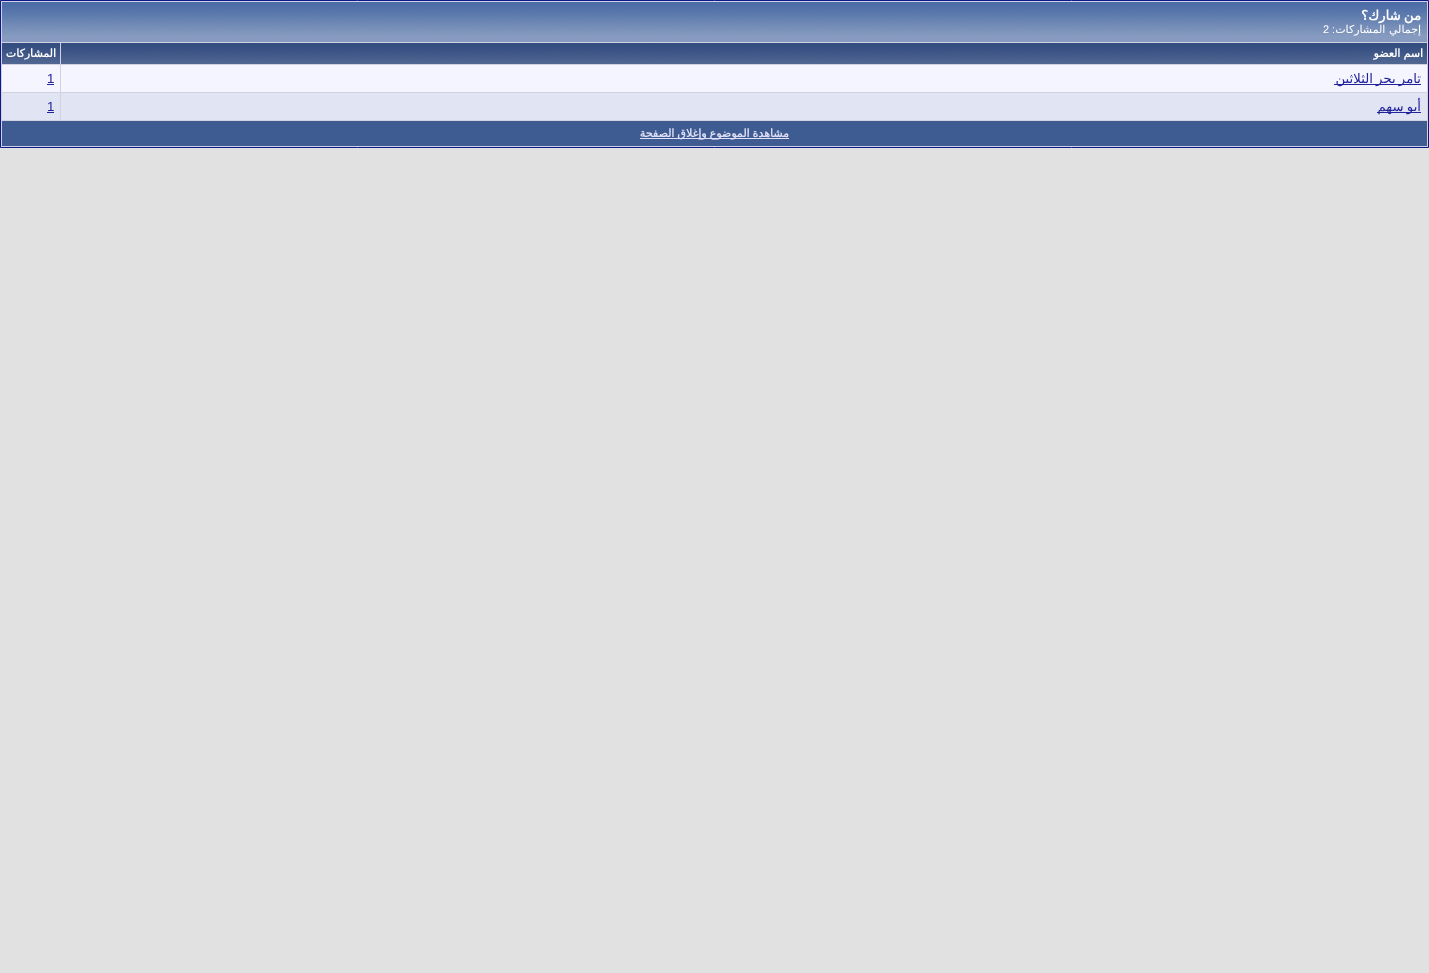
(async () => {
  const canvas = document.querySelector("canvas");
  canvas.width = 1429;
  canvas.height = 973;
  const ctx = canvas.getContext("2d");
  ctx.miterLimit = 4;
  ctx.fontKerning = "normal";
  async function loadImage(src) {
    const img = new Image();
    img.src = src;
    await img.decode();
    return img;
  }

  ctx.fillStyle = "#e1e1e2";
  ctx.fillRect(0, 0, 1429, 973);
  ctx.fillStyle = "#d1d1e1";
  ctx.beginPath();
  ctx.rect(0.5, 0.5, 1428, 147);
  ctx.fill();
  ctx.strokeStyle = "#0b198c";
  ctx.stroke();
  ctx.fillStyle = "#869bbf";
  ctx.fillRect(2, 35, 1425, 7);
  ctx.drawImage(await loadImage("img/1.png"), 2, 2, 1425, 33);
  ctx.drawImage(await loadImage("img/2.png"), 61, 43, 1366, 21);
  ctx.drawImage(await loadImage("img/3.png"), 2, 43, 58, 21);
  for (const [x, y, w, h, color] of [
    [61, 65, 1366, 27, "#f5f5ff"],
    [1334, 84, 87, 1, "#22229c"],
    [2, 65, 58, 27, "#f5f5ff"],
    [47, 84, 7, 1, "#22229c"],
    [61, 93, 1366, 27, "#e1e4f2"],
    [1377, 112, 44, 1, "#22229c"],
    [2, 93, 58, 27, "#e1e4f2"],
    [47, 112, 7, 1, "#22229c"],
    [2, 121, 1425, 25, "#3e5c92"],
    [640, 138, 149, 1, "#e0e0f6"],
  ]) {
    ctx.fillStyle = color;
    ctx.fillRect(x, y, w, h);
  }
  ctx.wordSpacing = "-1px";
  ctx.direction = "rtl";
  ctx.font = "bold 13.25px DejaVu Sans";
  ctx.fillStyle = "#ffffff";
  ctx.fillText("من شارك؟", 1421, 20);
  ctx.wordSpacing = "0px";
  ctx.font = "11px DejaVu Sans";
  ctx.fillText("إجمالي المشاركات", 1421, 33);
  ctx.font = "11px Liberation Sans";
  ctx.fillText(":", 1335, 33);
  ctx.direction = "ltr";
  ctx.fillText("2", 1323, 33);
  ctx.wordSpacing = "-0.5px";
  ctx.direction = "rtl";
  ctx.font = "bold 11px DejaVu Sans";
  ctx.fillText("اسم العضو", 1423, 57);
  ctx.wordSpacing = "0px";
  ctx.fillText("المشاركات", 56, 57);
  ctx.wordSpacing = "-1px";
  ctx.font = "13.25px DejaVu Sans";
  ctx.fillStyle = "#22229c";
  ctx.fillText("تامر بحر الثلاثين", 1421, 83);
  ctx.wordSpacing = "0px";
  ctx.direction = "ltr";
  ctx.font = "13.25px Liberation Sans";
  ctx.fillText("1", 47, 83);
  ctx.wordSpacing = "-1px";
  ctx.direction = "rtl";
  ctx.font = "13.25px DejaVu Sans";
  ctx.fillText("أبو سهم", 1421, 111);
  ctx.wordSpacing = "0px";
  ctx.direction = "ltr";
  ctx.font = "13.25px Liberation Sans";
  ctx.fillText("1", 47, 111);
  ctx.wordSpacing = "-0.5px";
  ctx.direction = "rtl";
  ctx.font = "bold 11px DejaVu Sans";
  ctx.fillStyle = "#e0e0f6";
  ctx.fillText("مشاهدة الموضوع وإغلاق الصفحة", 789, 137);
})();
